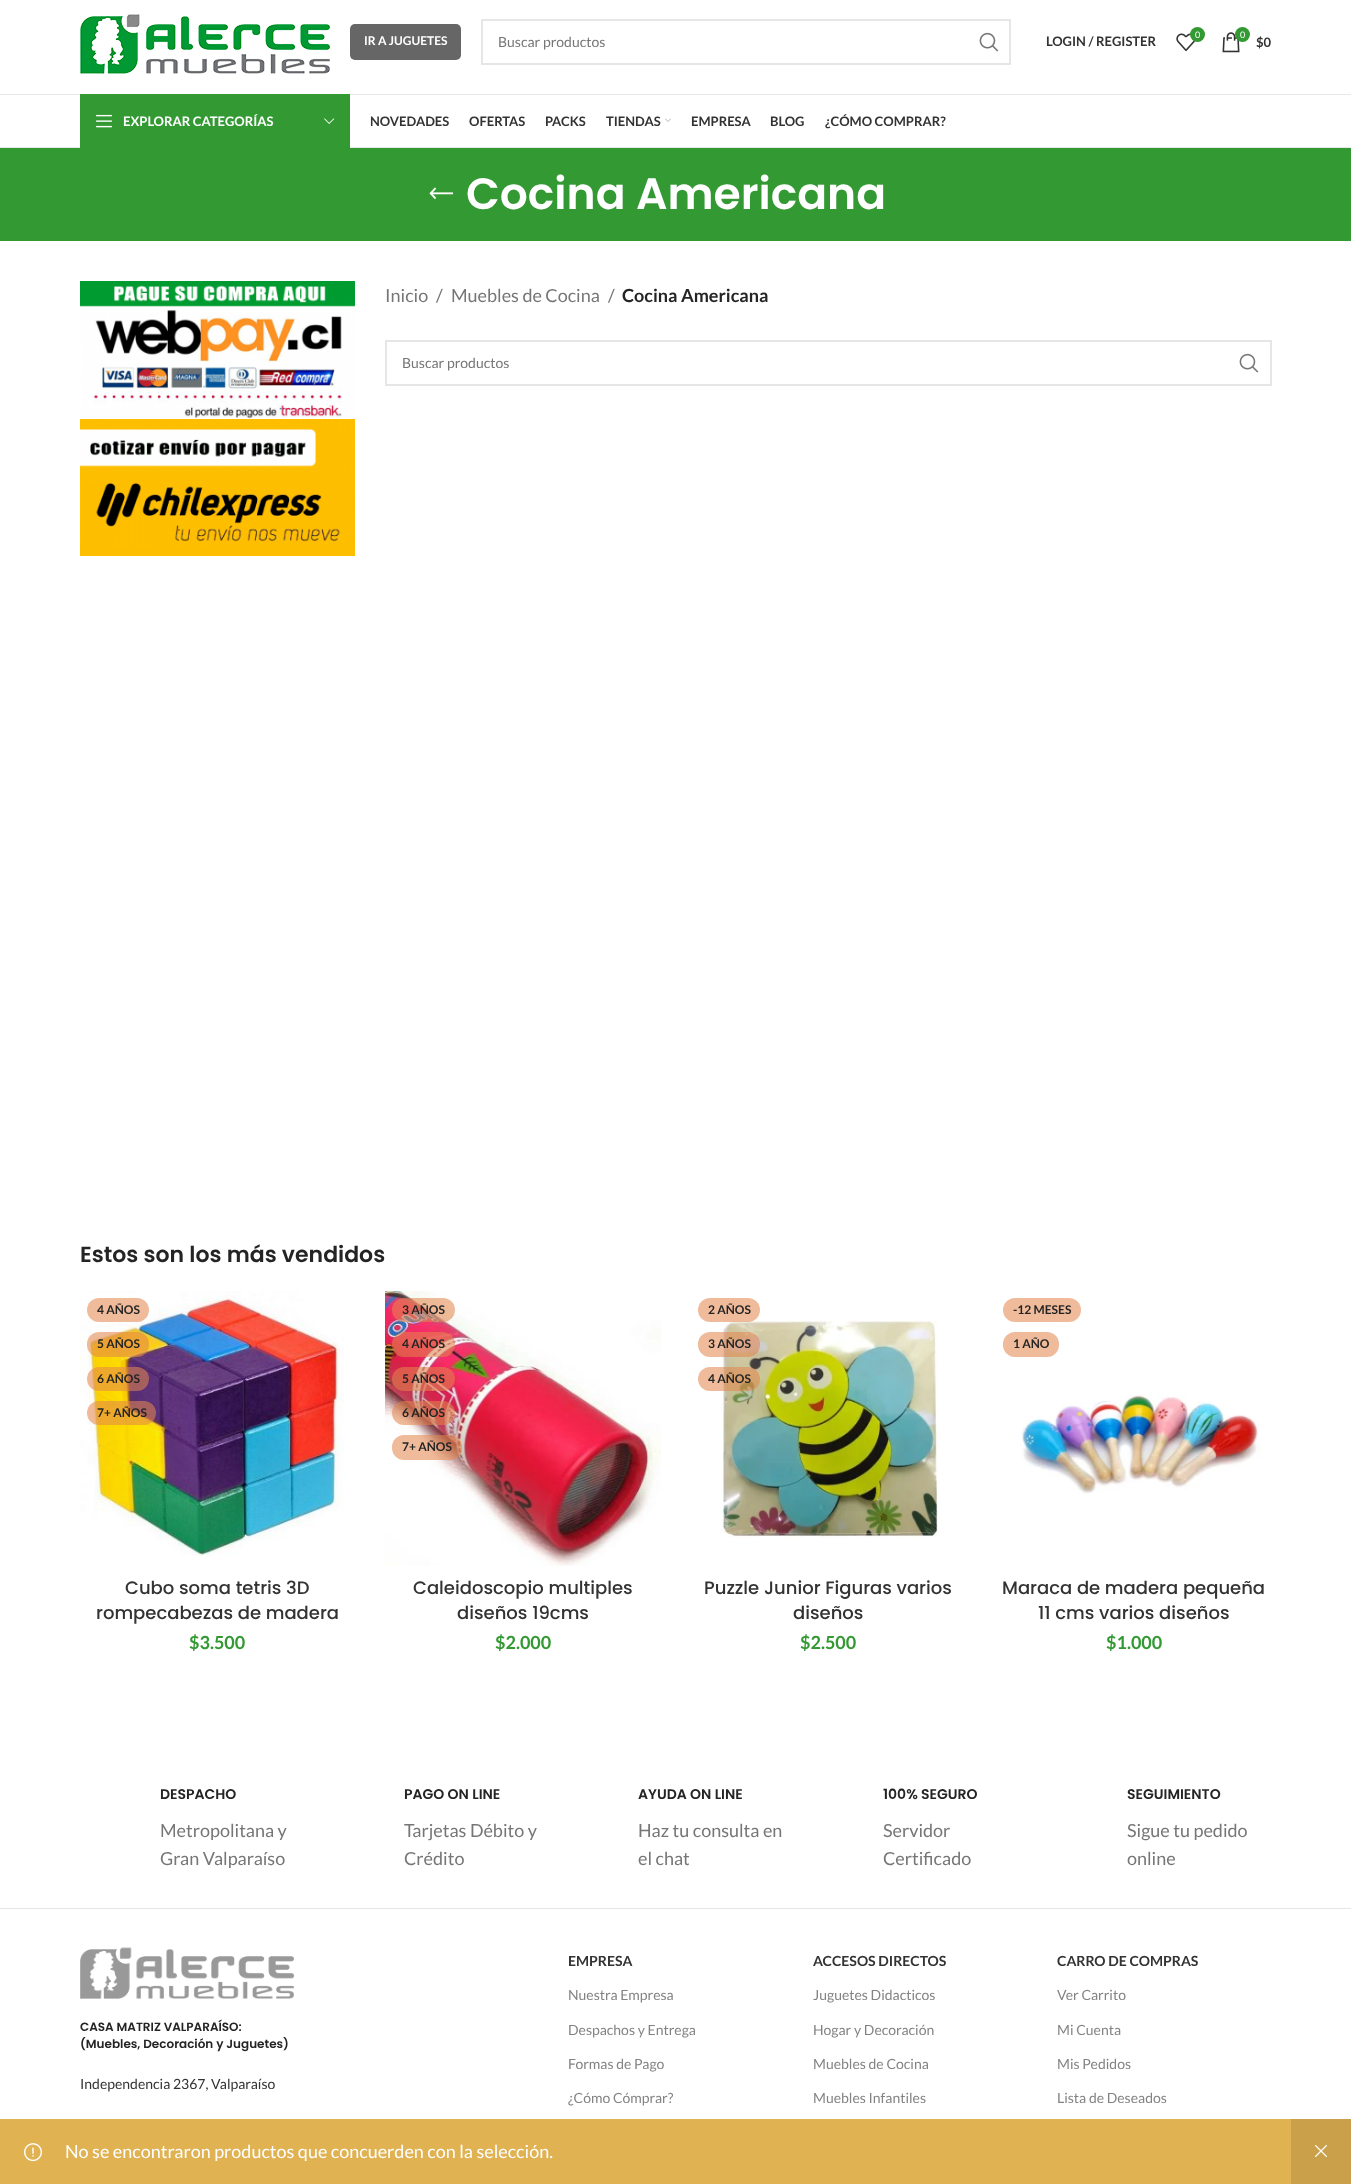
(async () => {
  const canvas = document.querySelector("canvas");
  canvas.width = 1351;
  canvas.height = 2184;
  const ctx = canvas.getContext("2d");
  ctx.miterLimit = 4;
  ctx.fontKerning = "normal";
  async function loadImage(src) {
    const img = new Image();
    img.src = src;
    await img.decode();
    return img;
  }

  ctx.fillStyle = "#ffffff";
  ctx.fillRect(0, 0, 1351, 2184);
  ctx.fillStyle = "#e8e8e8";
  ctx.fillRect(0, 94, 1351, 1);
  ctx.drawImage(await loadImage("img/1.png"), 80, 14, 250, 60);
  ctx.fillStyle = "#666666";
  ctx.beginPath();
  ctx.roundRect(350, 24, 111, 36, 5);
  ctx.fill();
  ctx.strokeStyle = "#e6e6e6";
  ctx.lineWidth = 2;
  ctx.strokeRect(482, 20, 528, 44);
  ctx.drawImage(await loadImage("img/2.png"), 979, 32, 20, 20);
  ctx.drawImage(await loadImage("img/3.png"), 1176, 33, 20, 18);
  ctx.fillStyle = "#339933";
  ctx.beginPath();
  ctx.arc(1197.5, 34.5, 7.5, 0, Math.PI * 2);
  ctx.fill();
  ctx.drawImage(await loadImage("img/4.png"), 1222, 32, 18, 21);
  ctx.beginPath();
  ctx.arc(1242.5, 34.5, 7.5, 0, Math.PI * 2);
  ctx.fill();
  ctx.fillStyle = "#e8e8e8";
  ctx.fillRect(0, 147, 1351, 1);
  ctx.fillStyle = "#339933";
  ctx.fillRect(80, 94, 270, 54);
  ctx.drawImage(await loadImage("img/5.png"), 96, 114, 16, 14);
  ctx.drawImage(await loadImage("img/6.png"), 324, 118, 11, 6);
  ctx.drawImage(await loadImage("img/7.png"), 665, 118, 6, 4);
  ctx.fillRect(0, 148, 1351, 93);
  ctx.drawImage(await loadImage("img/8.png"), 429, 187, 24, 13);
  ctx.drawImage(await loadImage("img/9.png"), 80, 281, 275, 138);
  ctx.drawImage(await loadImage("img/10.png"), 80, 419, 275, 137);
  ctx.strokeRect(386, 341, 885, 44);
  ctx.drawImage(await loadImage("img/11.png"), 1239, 353, 20, 20);
  ctx.fillStyle = "#e0b252";
  ctx.fillRect(0, 2119, 1291, 65);
  ctx.drawImage(await loadImage("img/12.png"), 24, 2143, 18, 19);
  ctx.fillStyle = "#caa04a";
  ctx.fillRect(1291, 2119, 60, 65);
  ctx.drawImage(await loadImage("img/13.png"), 1314, 2144, 14, 14);
  ctx.drawImage(await loadImage("img/14.png"), 80, 1291, 264, 265);
  ctx.fillStyle = "rgba(226, 134, 77, 0.56)";
  ctx.beginPath();
  ctx.roundRect(87, 1298, 62, 24, 12);
  ctx.fill();
  ctx.beginPath();
  ctx.roundRect(87, 1332, 62, 25, 12);
  ctx.fill();
  ctx.beginPath();
  ctx.roundRect(87, 1367, 62, 24, 12);
  ctx.fill();
  ctx.beginPath();
  ctx.roundRect(87, 1401, 69, 24, 12);
  ctx.fill();
  ctx.drawImage(await loadImage("img/15.png"), 385, 1291, 276, 275);
  ctx.beginPath();
  ctx.roundRect(392, 1298, 63, 24, 12);
  ctx.fill();
  ctx.beginPath();
  ctx.roundRect(392, 1332, 63, 25, 12);
  ctx.fill();
  ctx.beginPath();
  ctx.roundRect(392, 1367, 63, 24, 12);
  ctx.fill();
  ctx.beginPath();
  ctx.roundRect(392, 1401, 63, 24, 12);
  ctx.fill();
  ctx.beginPath();
  ctx.roundRect(392, 1435, 70, 25, 12);
  ctx.fill();
  ctx.drawImage(await loadImage("img/16.png"), 720, 1320, 218, 218);
  ctx.beginPath();
  ctx.roundRect(698, 1298, 62, 24, 12);
  ctx.fill();
  ctx.beginPath();
  ctx.roundRect(698, 1332, 62, 25, 12);
  ctx.fill();
  ctx.beginPath();
  ctx.roundRect(698, 1367, 62, 24, 12);
  ctx.fill();
  ctx.fillStyle = "#efbb9b";
  ctx.beginPath();
  ctx.roundRect(1003, 1298, 78, 24, 12);
  ctx.fill();
  ctx.beginPath();
  ctx.roundRect(1003, 1332, 56, 25, 12);
  ctx.fill();
  ctx.drawImage(await loadImage("img/17.png"), 1020, 1394, 241, 100);
  ctx.fillStyle = "#e6e6e6";
  ctx.fillRect(0, 1908, 1351, 1);
  ctx.drawImage(await loadImage("img/18.png"), 80, 1947, 214, 52);
  ctx.font = "bold 12px Lato";
  ctx.fillStyle = "#ffffff";
  ctx.fillText("IR A JUGUETES", 364, 45);
  ctx.font = "14px Lato";
  ctx.fillStyle = "#767676";
  ctx.fillText("Buscar productos", 498, 47);
  ctx.font = "bold 13px Lato";
  ctx.fillStyle = "#333333";
  ctx.fillText("LOGIN / REGISTER", 1046, 46);
  ctx.font = "9px Lato";
  ctx.fillStyle = "#ffffff";
  ctx.fillText("0", 1195, 38);
  ctx.fillText("0", 1240, 38);
  ctx.font = "bold 13px Lato";
  ctx.fillStyle = "#333333";
  ctx.fillText("$0", 1256, 47);
  ctx.fillStyle = "#ffffff";
  ctx.fillText("EXPLORAR CATEGORÍAS", 123, 126);
  ctx.fillStyle = "#333333";
  for (const [text, x, y] of [
    ["NOVEDADES", 370, 126],
    ["OFERTAS", 469, 126],
    ["PACKS", 545, 126],
    ["TIENDAS", 606, 126],
    ["EMPRESA", 691, 126],
    ["BLOG", 770, 126],
    ["¿CÓMO COMPRAR?", 825, 126],
  ]) {
    ctx.fillText(text, x, y);
  }
  ctx.font = "600 44px Poppins";
  ctx.fillStyle = "#ffffff";
  ctx.fillText("Cocina Americana", 466, 209);
  ctx.font = "18px Lato";
  ctx.fillStyle = "#767676";
  for (const [text, x, y] of [
    ["Inicio", 385, 302],
    ["/", 436, 302],
    ["Muebles de Cocina", 451, 302],
    ["/", 608, 302],
  ]) {
    ctx.fillText(text, x, y);
  }
  ctx.font = "bold 18px Lato";
  ctx.fillStyle = "#242424";
  ctx.fillText("Cocina Americana", 622, 302);
  ctx.font = "14px Lato";
  ctx.fillStyle = "#767676";
  ctx.fillText("Buscar productos", 402, 368);
  ctx.font = "18px Lato";
  ctx.fillStyle = "#ffffff";
  ctx.fillText("No se encontraron productos que concuerden con la selección.", 65, 2158);
  ctx.font = "600 22px Poppins";
  ctx.fillStyle = "#242424";
  ctx.fillText("Estos son los más vendidos", 80, 1262);
  ctx.font = "bold 12px Lato";
  for (const [text, x, y] of [
    ["4 AÑOS", 97, 1314],
    ["5 AÑOS", 97, 1348],
    ["6 AÑOS", 97, 1383],
    ["7+ AÑOS", 97, 1417],
  ]) {
    ctx.fillText(text, x, y);
  }
  ctx.font = "500 18px Poppins";
  ctx.fillStyle = "#333333";
  ctx.fillText("Cubo soma tetris 3D", 125, 1594);
  ctx.fillText("rompecabezas de madera", 96, 1619);
  ctx.font = "bold 18px Lato";
  ctx.fillStyle = "#339933";
  ctx.fillText("$3.500", 189, 1649);
  ctx.font = "bold 12px Lato";
  ctx.fillStyle = "#242424";
  for (const [text, x, y] of [
    ["3 AÑOS", 402, 1314],
    ["4 AÑOS", 402, 1348],
    ["5 AÑOS", 402, 1383],
    ["6 AÑOS", 402, 1417],
    ["7+ AÑOS", 402, 1451],
  ]) {
    ctx.fillText(text, x, y);
  }
  ctx.font = "500 18px Poppins";
  ctx.fillStyle = "#333333";
  ctx.fillText("Caleidoscopio multiples", 413, 1594);
  ctx.fillText("diseños 19cms", 457, 1619);
  ctx.font = "bold 18px Lato";
  ctx.fillStyle = "#339933";
  ctx.fillText("$2.000", 495, 1649);
  ctx.font = "bold 12px Lato";
  ctx.fillStyle = "#242424";
  for (const [text, x, y] of [
    ["2 AÑOS", 708, 1314],
    ["3 AÑOS", 708, 1348],
    ["4 AÑOS", 708, 1383],
  ]) {
    ctx.fillText(text, x, y);
  }
  ctx.font = "500 18px Poppins";
  ctx.fillStyle = "#333333";
  ctx.fillText("Puzzle Junior Figuras varios", 704, 1594);
  ctx.fillText("diseños", 793, 1619);
  ctx.font = "bold 18px Lato";
  ctx.fillStyle = "#339933";
  ctx.fillText("$2.500", 800, 1649);
  ctx.font = "bold 12px Lato";
  ctx.fillStyle = "#242424";
  ctx.fillText("-12 MESES", 1013, 1314);
  ctx.fillText("1 AÑO", 1013, 1348);
  ctx.font = "500 18px Poppins";
  ctx.fillStyle = "#333333";
  ctx.fillText("Maraca de madera pequeña", 1002, 1594);
  ctx.fillText("11 cms varios diseños", 1038, 1619);
  ctx.font = "bold 18px Lato";
  ctx.fillStyle = "#339933";
  ctx.fillText("$1.000", 1106, 1649);
  ctx.font = "600 14px Poppins";
  ctx.fillStyle = "#242424";
  ctx.fillText("DESPACHO", 160, 1799);
  ctx.font = "18px Lato";
  ctx.fillStyle = "#767676";
  ctx.fillText("Metropolitana y", 160, 1837);
  ctx.fillText("Gran Valparaíso", 160, 1865);
  ctx.font = "600 14px Poppins";
  ctx.fillStyle = "#242424";
  ctx.fillText("PAGO ON LINE", 404, 1799);
  ctx.font = "18px Lato";
  ctx.fillStyle = "#767676";
  ctx.fillText("Tarjetas Débito y", 404, 1837);
  ctx.fillText("Crédito", 404, 1865);
  ctx.font = "600 14px Poppins";
  ctx.fillStyle = "#242424";
  ctx.fillText("AYUDA ON LINE", 638, 1799);
  ctx.font = "18px Lato";
  ctx.fillStyle = "#767676";
  ctx.fillText("Haz tu consulta en", 638, 1837);
  ctx.fillText("el chat", 638, 1865);
  ctx.font = "600 14px Poppins";
  ctx.fillStyle = "#242424";
  ctx.fillText("100% SEGURO", 883, 1799);
  ctx.font = "18px Lato";
  ctx.fillStyle = "#767676";
  ctx.fillText("Servidor", 883, 1837);
  ctx.fillText("Certificado", 883, 1865);
  ctx.font = "600 14px Poppins";
  ctx.fillStyle = "#242424";
  ctx.fillText("SEGUIMIENTO", 1127, 1799);
  ctx.font = "18px Lato";
  ctx.fillStyle = "#767676";
  ctx.fillText("Sigue tu pedido", 1127, 1837);
  ctx.fillText("online", 1127, 1865);
  ctx.font = "600 12px Poppins";
  ctx.fillStyle = "#242424";
  ctx.fillText("CASA MATRIZ VALPARAÍSO:", 80, 2031);
  ctx.fillText("(Muebles, Decoración y Juguetes)", 80, 2048);
  ctx.font = "14px Lato";
  ctx.fillStyle = "#333333";
  ctx.fillText("Independencia 2367, Valparaíso", 80, 2089);
  ctx.font = "bold 14px Lato";
  ctx.fillText("EMPRESA", 568, 1966);
  ctx.font = "14px Lato";
  ctx.fillStyle = "#838383";
  for (const [text, x, y] of [
    ["Nuestra Empresa", 568, 2000],
    ["Despachos y Entrega", 568, 2035],
    ["Formas de Pago", 568, 2069],
    ["¿Cómo Cómprar?", 568, 2103],
  ]) {
    ctx.fillText(text, x, y);
  }
  ctx.font = "bold 14px Lato";
  ctx.fillStyle = "#333333";
  ctx.fillText("ACCESOS DIRECTOS", 813, 1966);
  ctx.font = "14px Lato";
  ctx.fillStyle = "#838383";
  for (const [text, x, y] of [
    ["Juguetes Didacticos", 813, 2000],
    ["Hogar y Decoración", 813, 2035],
    ["Muebles de Cocina", 813, 2069],
    ["Muebles Infantiles", 813, 2103],
  ]) {
    ctx.fillText(text, x, y);
  }
  ctx.font = "bold 14px Lato";
  ctx.fillStyle = "#333333";
  ctx.fillText("CARRO DE COMPRAS", 1057, 1966);
  ctx.font = "14px Lato";
  ctx.fillStyle = "#838383";
  for (const [text, x, y] of [
    ["Ver Carrito", 1057, 2000],
    ["Mi Cuenta", 1057, 2035],
    ["Mis Pedidos", 1057, 2069],
    ["Lista de Deseados", 1057, 2103],
  ]) {
    ctx.fillText(text, x, y);
  }
})();
